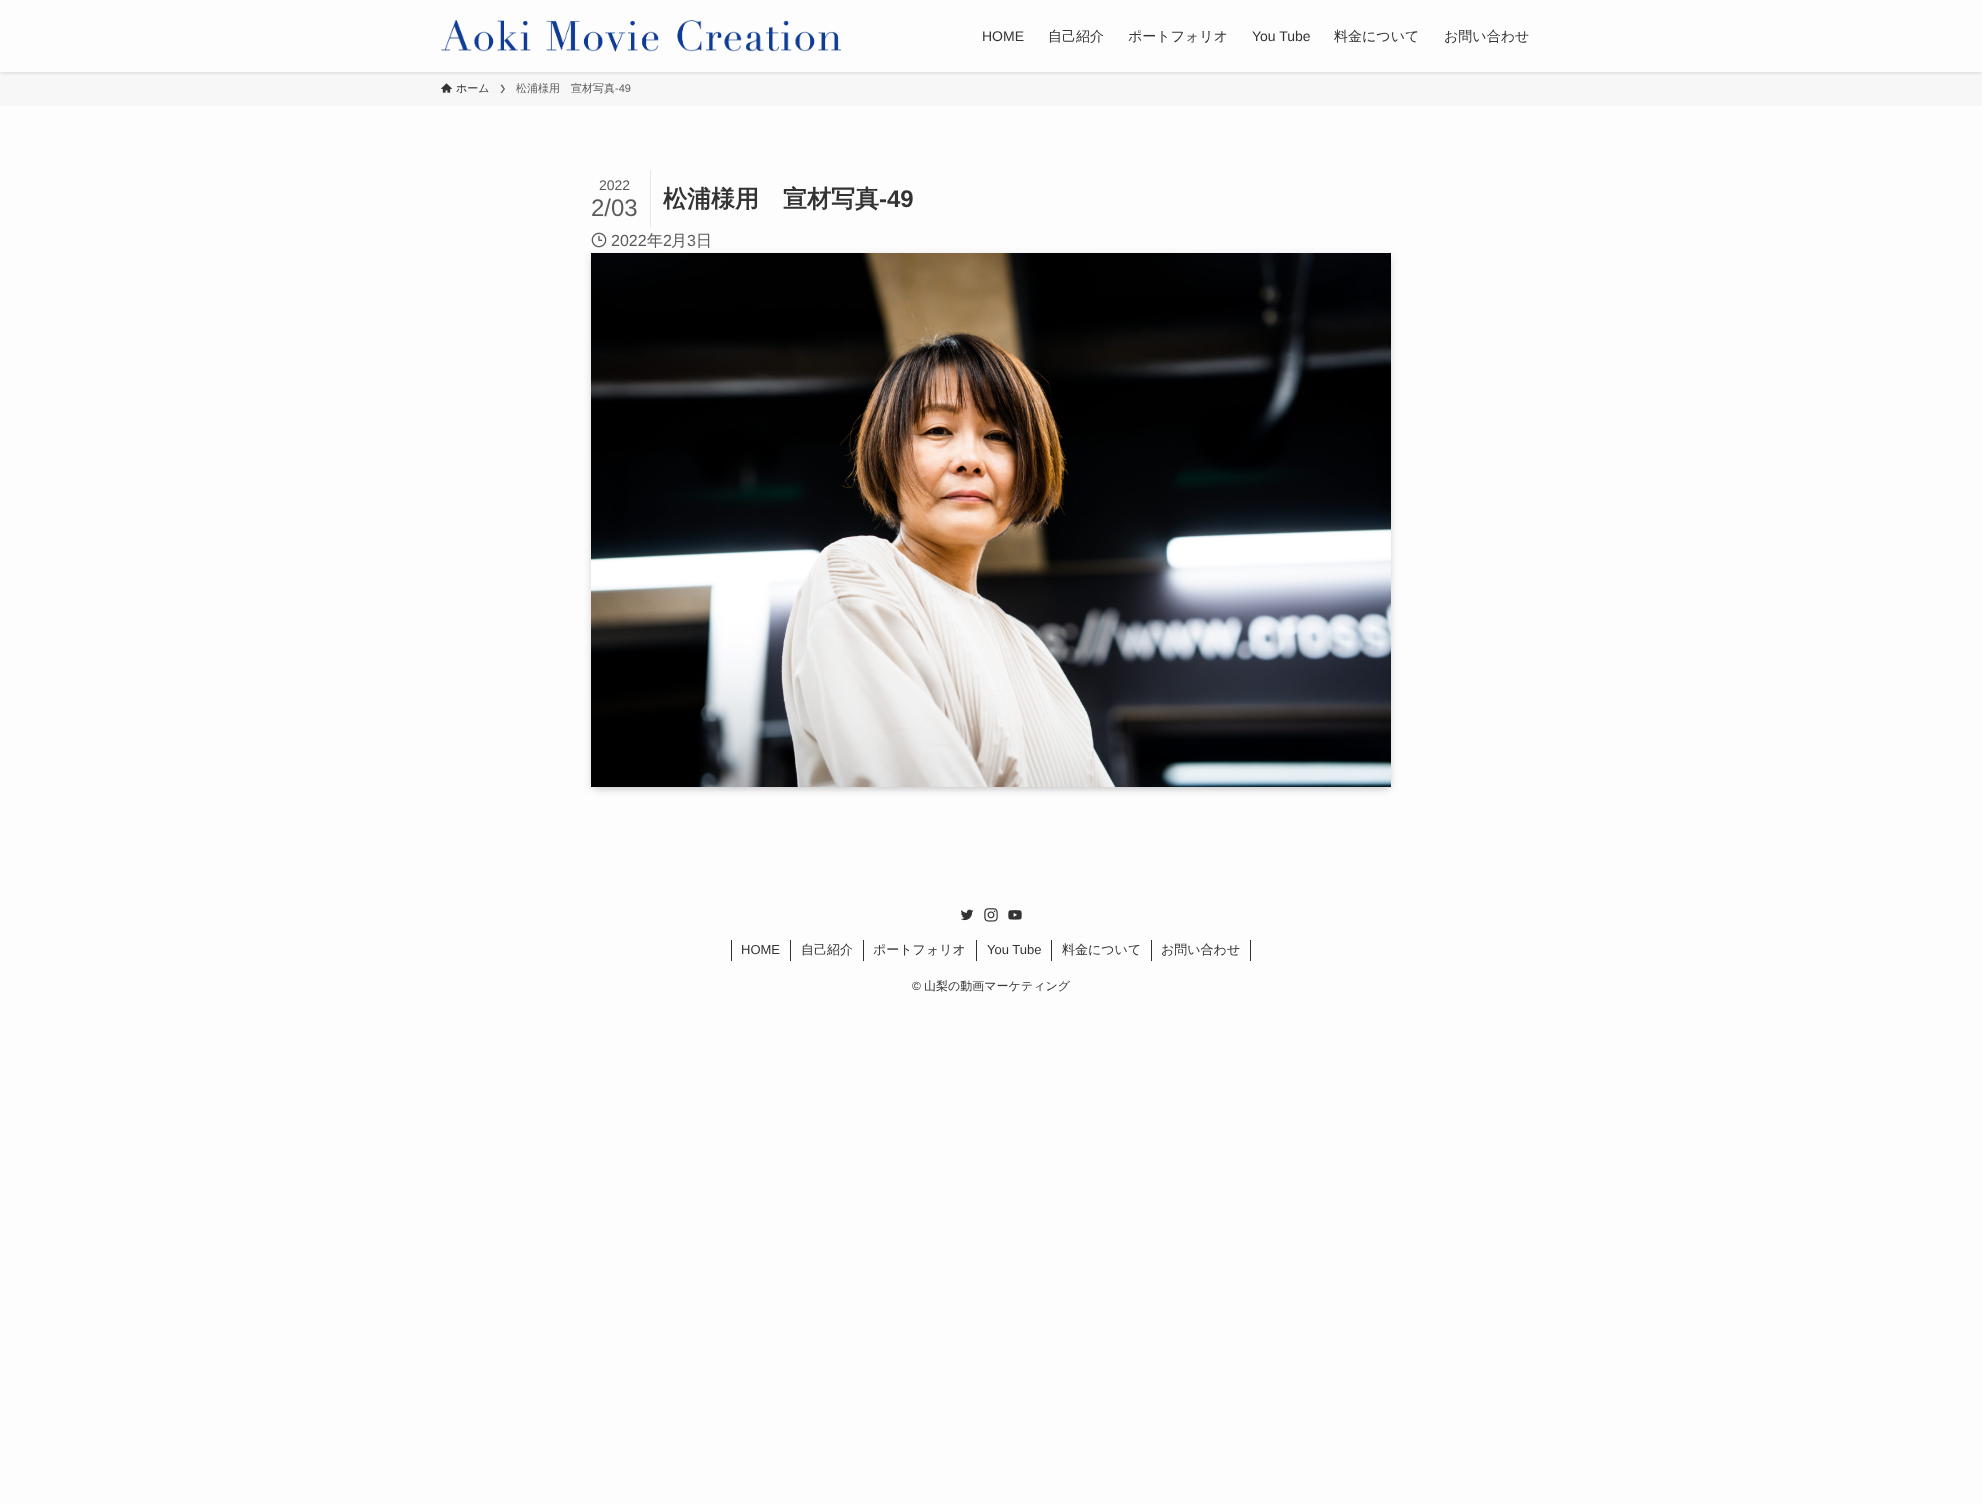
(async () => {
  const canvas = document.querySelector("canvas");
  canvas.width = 1982;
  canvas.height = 1504;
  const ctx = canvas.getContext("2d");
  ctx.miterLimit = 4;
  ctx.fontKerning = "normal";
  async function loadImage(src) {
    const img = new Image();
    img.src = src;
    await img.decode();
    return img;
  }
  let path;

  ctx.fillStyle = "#fdfdfd";
  ctx.fillRect(0, 0, 1982, 1504);
  ctx.fillStyle = "#f7f7f7";
  ctx.fillRect(0, 72, 1982, 34);
  ctx.save();
  ctx.beginPath();
  ctx.rect(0, 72, 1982, 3);
  ctx.clip();
  ctx.fillStyle = "rgba(0, 0, 0, 0.12)";
  ctx.filter = "blur(2px)";
  ctx.beginPath();
  ctx.rect(0, 1, 1982, 72);
  ctx.fill();
  ctx.filter = "none";
  ctx.restore();
  ctx.drawImage(await loadImage("img/1.png"), 441, 20, 400, 32);
  ctx.drawImage(await loadImage("img/2.png"), 441, 83, 11, 10);
  ctx.fillStyle = "#5a5a5a";
  path = new Path2D("M502 84.5L500.5 85L503.5 89L500.5 93H502L505 89Z");
  ctx.fill(path);
  ctx.fillStyle = "#e8e8e8";
  ctx.fillRect(650, 170, 1, 58);
  ctx.fillStyle = "rgba(0, 0, 0, 0.1)";
  ctx.filter = "blur(4px)";
  ctx.beginPath();
  ctx.rect(591, 255, 800, 534);
  ctx.fill();
  ctx.filter = "none";
  ctx.drawImage(await loadImage("img/3.png"), 591, 232, 16, 16);
  ctx.fillStyle = "rgba(0, 0, 0, 0.2)";
  ctx.filter = "blur(4px)";
  ctx.beginPath();
  ctx.rect(595, 261, 792, 526);
  ctx.fill();
  ctx.filter = "none";
  ctx.drawImage(await loadImage("img/4.png"), 591, 253, 800, 534);
  ctx.drawImage(await loadImage("img/5.png"), 960, 909, 14, 12);
  ctx.drawImage(await loadImage("img/6.png"), 984, 908, 14, 14);
  ctx.drawImage(await loadImage("img/7.png"), 1008, 910, 14, 10);
  for (const [x, y, w, h, color] of [
    [790, 940, 1, 21, "#333333"],
    [731, 940, 1, 21, "#333333"],
    [863, 940, 1, 21, "#333333"],
    [976, 940, 1, 21, "#333333"],
    [1051, 940, 1, 21, "#333333"],
    [1151, 940, 1, 21, "#333333"],
    [1250, 940, 1, 21, "#333333"],
  ]) {
    ctx.fillStyle = color;
    ctx.fillRect(x, y, w, h);
  }
  ctx.font = "14px Liberation Sans";
  ctx.fillText("HOME", 982, 41);
  ctx.font = "500 14px WenQuanYi Zen Hei";
  ctx.fillText("自己紹介", 1048, 41);
  ctx.fillText("ポートフォリオ", 1128, 41);
  ctx.font = "14px Liberation Sans";
  ctx.fillText("You Tube", 1252, 41);
  ctx.font = "500 14px WenQuanYi Zen Hei";
  ctx.fillText("料金について", 1334, 41);
  ctx.fillText("お問い合わせ", 1444, 41);
  ctx.font = "500 11px WenQuanYi Zen Hei";
  ctx.fillText("ホーム", 456, 92);
  ctx.fillStyle = "#5a5a5a";
  ctx.fillText("松浦様用　宣材写真", 516, 92);
  ctx.font = "11px Liberation Sans";
  ctx.fillText("-49", 615, 92);
  ctx.font = "14px Liberation Sans";
  ctx.fillText("2022", 599, 190);
  ctx.font = "24px Liberation Sans";
  ctx.fillText("2/03", 591, 216);
  ctx.font = "bold 24px WenQuanYi Zen Hei";
  ctx.fillStyle = "#333333";
  ctx.fillText("松浦様用　宣材写真", 663, 207);
  ctx.font = "bold 24px Liberation Sans";
  ctx.fillText("-49", 879, 207);
  ctx.font = "16px Liberation Sans";
  ctx.fillStyle = "#5a5a5a";
  ctx.fillText("2022", 611, 246);
  ctx.font = "500 16px WenQuanYi Zen Hei";
  ctx.fillText("年", 647, 246);
  ctx.font = "16px Liberation Sans";
  ctx.fillText("2", 663, 246);
  ctx.font = "500 16px WenQuanYi Zen Hei";
  ctx.fillText("月", 671, 246);
  ctx.font = "16px Liberation Sans";
  ctx.fillText("3", 687, 246);
  ctx.font = "500 16px WenQuanYi Zen Hei";
  ctx.fillText("日", 696, 246);
  ctx.font = "13px Liberation Sans";
  ctx.fillStyle = "#333333";
  ctx.fillText("HOME", 741, 954);
  ctx.font = "500 13px WenQuanYi Zen Hei";
  ctx.fillText("自己紹介", 801, 954);
  ctx.fillText("ポートフォリオ", 873, 954);
  ctx.font = "13px Liberation Sans";
  ctx.fillText("You Tube", 987, 954);
  ctx.font = "500 13px WenQuanYi Zen Hei";
  ctx.fillText("料金について", 1062, 954);
  ctx.fillText("お問い合わせ", 1161, 954);
  ctx.font = "12px Liberation Sans";
  ctx.fillText("©", 912, 990);
  ctx.font = "500 12px WenQuanYi Zen Hei";
  ctx.fillText("山梨の動画マーケティング", 924, 990);
})();
